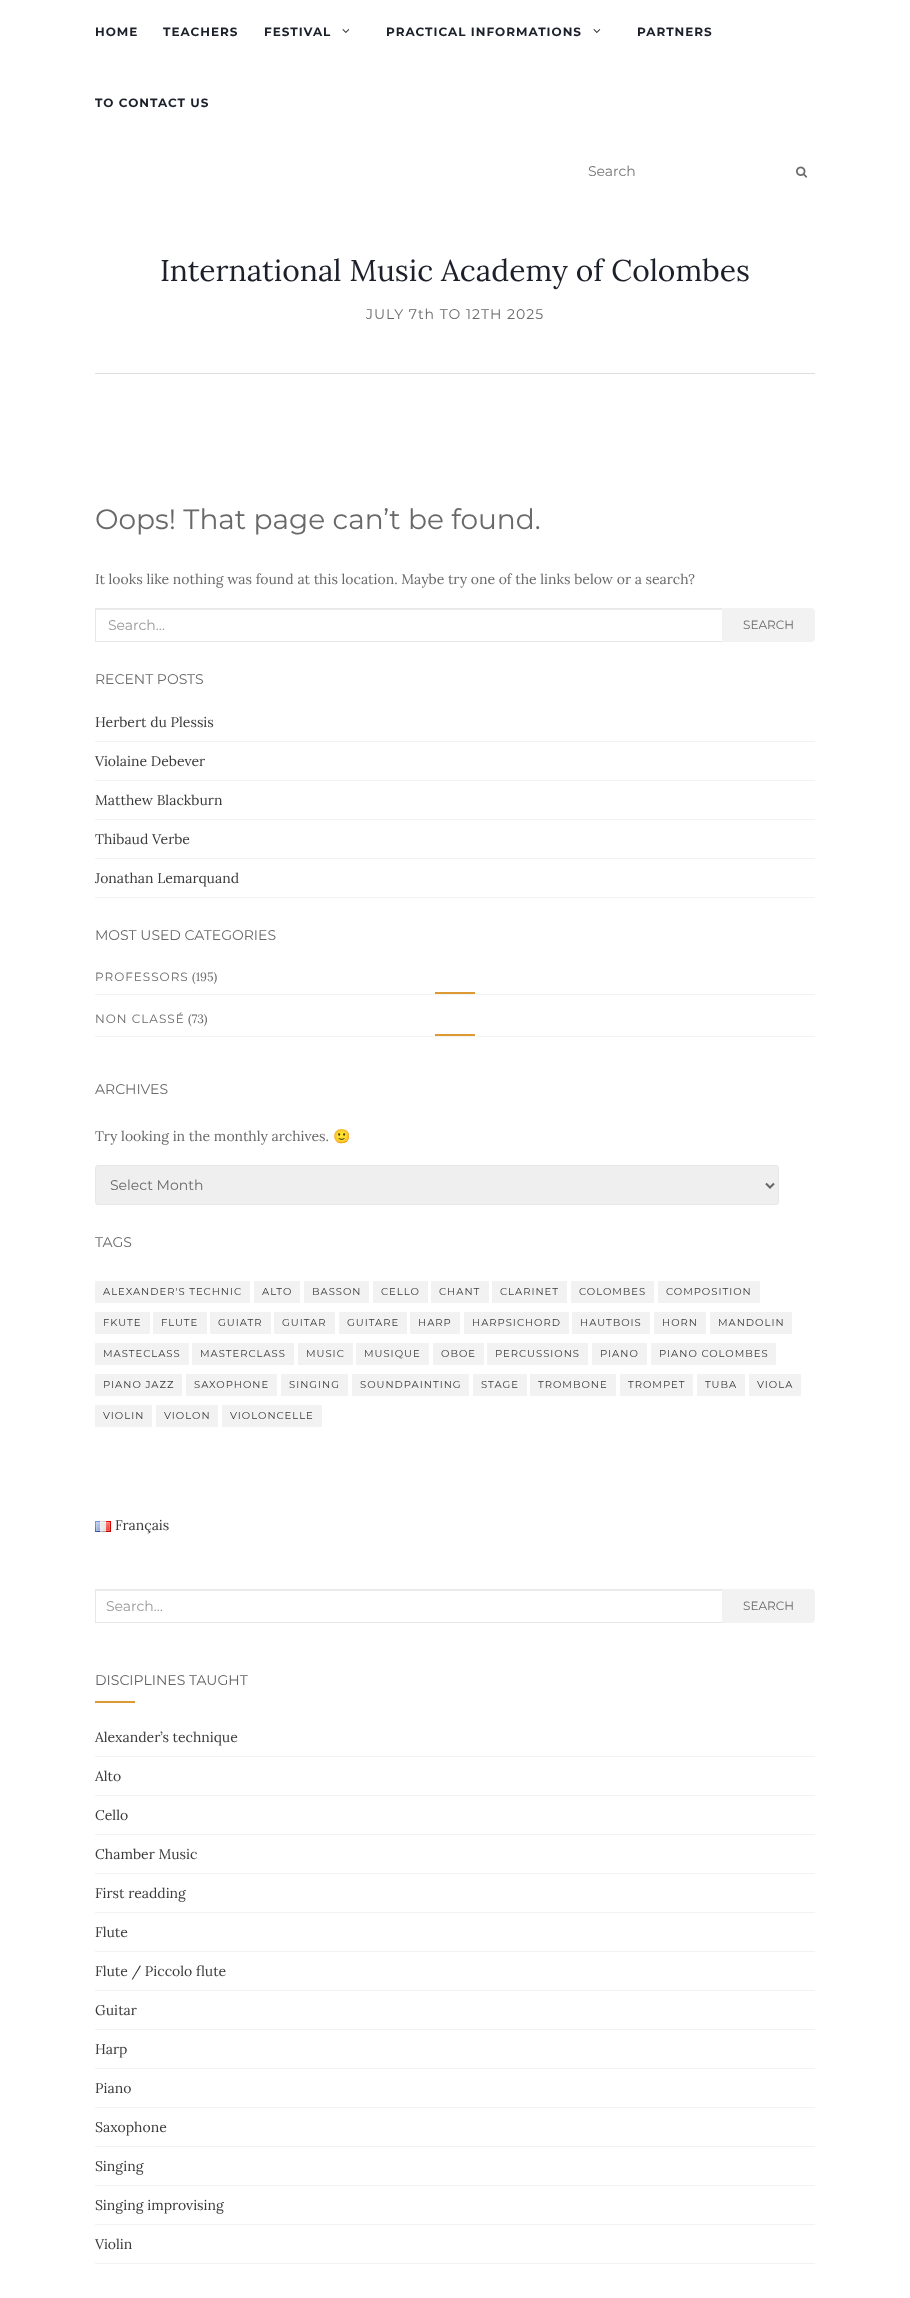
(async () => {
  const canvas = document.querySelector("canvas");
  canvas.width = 910;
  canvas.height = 2298;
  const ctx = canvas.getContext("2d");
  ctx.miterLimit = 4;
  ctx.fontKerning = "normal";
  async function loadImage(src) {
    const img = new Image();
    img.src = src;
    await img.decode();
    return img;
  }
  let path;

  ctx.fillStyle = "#ffffff";
  ctx.fillRect(0, 0, 910, 2298);
  ctx.drawImage(await loadImage("img/1.png"), 342, 29, 8, 4);
  ctx.drawImage(await loadImage("img/1.png"), 593, 29, 8, 4);
  ctx.drawImage(await loadImage("img/2.png"), 796, 166, 12, 12);
  ctx.fillStyle = "#dddddd";
  ctx.fillRect(95, 373, 720, 1);
  ctx.fillStyle = "#ececec";
  ctx.fillRect(96, 609, 626, 1);
  ctx.strokeStyle = "#e8e8e8";
  ctx.strokeRect(95.5, 608.5, 627, 33);
  ctx.fillStyle = "#f2f2f2";
  ctx.beginPath();
  ctx.roundRect(722, 608, 93, 34, [0, 4, 4, 0]);
  ctx.fill();
  for (const [x, y, w, h, color] of [
    [95, 741, 720, 1, "#f2f2f2"],
    [95, 780, 720, 1, "#f2f2f2"],
    [95, 819, 720, 1, "#f2f2f2"],
    [95, 858, 720, 1, "#f2f2f2"],
    [95, 897, 720, 1, "#f2f2f2"],
    [95, 994, 720, 1, "#f2f2f2"],
    [435, 992, 40, 2, "#dd9933"],
    [95, 1036, 720, 1, "#f2f2f2"],
    [435, 1034, 40, 2, "#dd9933"],
  ]) {
    ctx.fillStyle = color;
    ctx.fillRect(x, y, w, h);
  }
  ctx.fillStyle = "#efefef";
  ctx.beginPath();
  ctx.roundRect(95.5, 1165.5, 683, 39, 2.5);
  ctx.fill();
  ctx.stroke();
  path = new Path2D("M766 1183.5L770 1187.5L774 1183.5");
  ctx.strokeStyle = "#666666";
  ctx.lineWidth = 2;
  ctx.stroke(path);
  for (const [x, y, w, h, color] of [
    [95, 1281, 155, 22, "#f2f2f2"],
    [254, 1281, 46, 22, "#f2f2f2"],
    [304, 1281, 65, 22, "#f2f2f2"],
    [373, 1281, 55, 22, "#f2f2f2"],
    [431, 1281, 58, 22, "#f2f2f2"],
    [492, 1281, 75, 22, "#f2f2f2"],
    [571, 1281, 83, 22, "#f2f2f2"],
    [658, 1281, 102, 22, "#f2f2f2"],
    [95, 1312, 55, 22, "#f2f2f2"],
    [153, 1312, 54, 22, "#f2f2f2"],
    [210, 1312, 61, 22, "#f2f2f2"],
    [274, 1312, 61, 22, "#f2f2f2"],
    [339, 1312, 68, 22, "#f2f2f2"],
    [410, 1312, 50, 22, "#f2f2f2"],
    [464, 1312, 105, 22, "#f2f2f2"],
    [572, 1312, 78, 22, "#f2f2f2"],
    [654, 1312, 52, 22, "#f2f2f2"],
    [710, 1312, 82, 22, "#f2f2f2"],
    [95, 1343, 94, 22, "#f2f2f2"],
    [192, 1343, 102, 22, "#f2f2f2"],
    [298, 1343, 55, 22, "#f2f2f2"],
    [356, 1343, 73, 22, "#f2f2f2"],
    [433, 1343, 51, 22, "#f2f2f2"],
    [487, 1343, 101, 22, "#f2f2f2"],
    [592, 1343, 55, 22, "#f2f2f2"],
    [651, 1343, 125, 22, "#f2f2f2"],
    [95, 1374, 87, 22, "#f2f2f2"],
    [186, 1374, 91, 22, "#f2f2f2"],
    [281, 1374, 67, 22, "#f2f2f2"],
    [352, 1374, 117, 22, "#f2f2f2"],
    [473, 1374, 54, 22, "#f2f2f2"],
    [530, 1374, 86, 22, "#f2f2f2"],
    [620, 1374, 73, 22, "#f2f2f2"],
    [697, 1374, 48, 22, "#f2f2f2"],
    [749, 1374, 52, 22, "#f2f2f2"],
    [95, 1405, 57, 22, "#f2f2f2"],
    [156, 1405, 62, 22, "#f2f2f2"],
    [222, 1405, 100, 22, "#f2f2f2"],
  ]) {
    ctx.fillStyle = color;
    ctx.fillRect(x, y, w, h);
  }
  ctx.drawImage(await loadImage("img/3.png"), 95, 1521, 16, 11);
  ctx.fillStyle = "#ececec";
  ctx.fillRect(96, 1590, 626, 1);
  ctx.strokeStyle = "#e8e8e8";
  ctx.lineWidth = 1;
  ctx.strokeRect(95.5, 1589.5, 627, 33);
  ctx.fillStyle = "#f2f2f2";
  ctx.beginPath();
  ctx.roundRect(722, 1589, 93, 34, [0, 4, 4, 0]);
  ctx.fill();
  for (const [x, y, w, h, color] of [
    [95, 1701, 40, 2, "#dd9933"],
    [95, 1756, 720, 1, "#f2f2f2"],
    [95, 1795, 720, 1, "#f2f2f2"],
    [95, 1834, 720, 1, "#f2f2f2"],
    [95, 1873, 720, 1, "#f2f2f2"],
    [95, 1912, 720, 1, "#f2f2f2"],
    [95, 1951, 720, 1, "#f2f2f2"],
    [95, 1990, 720, 1, "#f2f2f2"],
    [95, 2029, 720, 1, "#f2f2f2"],
    [95, 2068, 720, 1, "#f2f2f2"],
    [95, 2107, 720, 1, "#f2f2f2"],
    [95, 2146, 720, 1, "#f2f2f2"],
    [95, 2185, 720, 1, "#f2f2f2"],
    [95, 2224, 720, 1, "#f2f2f2"],
    [95, 2263, 720, 1, "#f2f2f2"],
  ]) {
    ctx.fillStyle = color;
    ctx.fillRect(x, y, w, h);
  }
  ctx.letterSpacing = "1px";
  ctx.font = "bold 12px Montserrat";
  ctx.fillStyle = "#1c202a";
  for (const [text, x, y] of [
    ["HOME", 95, 36],
    ["TEACHERS", 163, 36],
    ["FESTIVAL", 264, 36],
    ["PRACTICAL INFORMATIONS", 386, 36],
    ["PARTNERS", 637, 36],
    ["TO CONTACT US", 95, 107],
  ]) {
    ctx.fillText(text, x, y);
  }
  ctx.letterSpacing = "0px";
  ctx.font = "14px Montserrat";
  ctx.fillStyle = "#757575";
  ctx.fillText("Search", 588, 176);
  ctx.font = "30px Lora";
  ctx.fillStyle = "#1c202a";
  ctx.fillText("International Music Academy of Colombes", 160, 281);
  ctx.letterSpacing = "1px";
  ctx.font = "14px Montserrat";
  ctx.fillStyle = "#696969";
  ctx.fillText("JULY 7th TO 12TH 2025", 366, 319);
  ctx.letterSpacing = "0px";
  ctx.font = "28px Montserrat";
  ctx.fillText("Oops! That page can’t be found.", 95, 529);
  ctx.font = "14px Lora";
  ctx.fillText("It looks like nothing was found at this location. Maybe try one of the links below or a search?", 95, 584);
  ctx.font = "14px Montserrat";
  ctx.fillStyle = "#999999";
  ctx.fillText("Search…", 108, 630);
  ctx.font = "12px Montserrat";
  ctx.fillStyle = "#696969";
  ctx.fillText("SEARCH", 743, 629);
  ctx.font = "14px Montserrat";
  ctx.fillText("RECENT POSTS", 95, 684);
  ctx.font = "14px Lora";
  ctx.fillStyle = "#393939";
  for (const [text, x, y] of [
    ["Herbert du Plessis", 95, 727],
    ["Violaine Debever", 95, 766],
    ["Matthew Blackburn", 95, 805],
    ["Thibaud Verbe", 95, 844],
    ["Jonathan Lemarquand", 95, 883],
  ]) {
    ctx.fillText(text, x, y);
  }
  ctx.font = "14px Montserrat";
  ctx.fillStyle = "#696969";
  ctx.fillText("MOST USED CATEGORIES", 95, 940);
  ctx.letterSpacing = "1px";
  ctx.font = "12px Montserrat";
  ctx.fillText("PROFESSORS", 95, 981);
  ctx.letterSpacing = "0px";
  ctx.font = "12px Lora";
  ctx.fillText("(195)", 192, 981);
  ctx.letterSpacing = "1px";
  ctx.font = "12px Montserrat";
  ctx.fillText("NON CLASSÉ", 95, 1023);
  ctx.letterSpacing = "0px";
  ctx.font = "12px Lora";
  ctx.fillText("(73)", 188, 1023);
  ctx.font = "14px Montserrat";
  ctx.fillText("ARCHIVES", 95, 1094);
  ctx.font = "14px Lora";
  ctx.fillText("Try looking in the monthly archives.", 95, 1141);
  ctx.font = "14px Noto Color Emoji";
  ctx.fillText("🙂", 333, 1141);
  ctx.font = "14px Montserrat";
  ctx.fillText("Select Month", 110, 1190);
  ctx.fillText("TAGS", 95, 1247);
  ctx.letterSpacing = "1px";
  ctx.font = "10px Montserrat";
  ctx.fillStyle = "#393939";
  for (const [text, x, y] of [
    ["ALEXANDER'S TECHNIC", 103, 1295],
    ["ALTO", 262, 1295],
    ["BASSON", 312, 1295],
    ["CELLO", 381, 1295],
    ["CHANT", 439, 1295],
    ["CLARINET", 500, 1295],
    ["COLOMBES", 579, 1295],
    ["COMPOSITION", 666, 1295],
    ["FKUTE", 103, 1326],
    ["FLUTE", 161, 1326],
    ["GUIATR", 218, 1326],
    ["GUITAR", 282, 1326],
    ["GUITARE", 347, 1326],
    ["HARP", 418, 1326],
    ["HARPSICHORD", 472, 1326],
    ["HAUTBOIS", 580, 1326],
    ["HORN", 662, 1326],
    ["MANDOLIN", 718, 1326],
    ["MASTECLASS", 103, 1357],
    ["MASTERCLASS", 200, 1357],
    ["MUSIC", 306, 1357],
    ["MUSIQUE", 364, 1357],
    ["OBOE", 441, 1357],
    ["PERCUSSIONS", 495, 1357],
    ["PIANO", 600, 1357],
    ["PIANO COLOMBES", 659, 1357],
    ["PIANO JAZZ", 103, 1388],
    ["SAXOPHONE", 194, 1388],
    ["SINGING", 289, 1388],
    ["SOUNDPAINTING", 360, 1388],
    ["STAGE", 481, 1388],
    ["TROMBONE", 538, 1388],
    ["TROMPET", 628, 1388],
    ["TUBA", 705, 1388],
    ["VIOLA", 757, 1388],
    ["VIOLIN", 103, 1419],
    ["VIOLON", 164, 1419],
    ["VIOLONCELLE", 230, 1419],
  ]) {
    ctx.fillText(text, x, y);
  }
  ctx.letterSpacing = "0px";
  ctx.font = "14px Lora";
  ctx.fillText("Français", 115, 1530);
  ctx.font = "14px Montserrat";
  ctx.fillStyle = "#999999";
  ctx.fillText("Search…", 106, 1611);
  ctx.font = "12px Montserrat";
  ctx.fillStyle = "#696969";
  ctx.fillText("SEARCH", 743, 1610);
  ctx.font = "14px Montserrat";
  ctx.fillStyle = "#636467";
  ctx.fillText("DISCIPLINES TAUGHT", 95, 1685);
  ctx.font = "14px Lora";
  ctx.fillStyle = "#393939";
  for (const [text, x, y] of [
    ["Alexander’s technique", 95, 1742],
    ["Alto", 95, 1781],
    ["Cello", 95, 1820],
    ["Chamber Music", 95, 1859],
    ["First readding", 95, 1898],
    ["Flute", 95, 1937],
    ["Flute / Piccolo flute", 95, 1976],
    ["Guitar", 95, 2015],
    ["Harp", 95, 2054],
    ["Piano", 95, 2093],
    ["Saxophone", 95, 2132],
    ["Singing", 95, 2171],
    ["Singing improvising", 95, 2210],
    ["Violin", 95, 2249],
  ]) {
    ctx.fillText(text, x, y);
  }
})();
